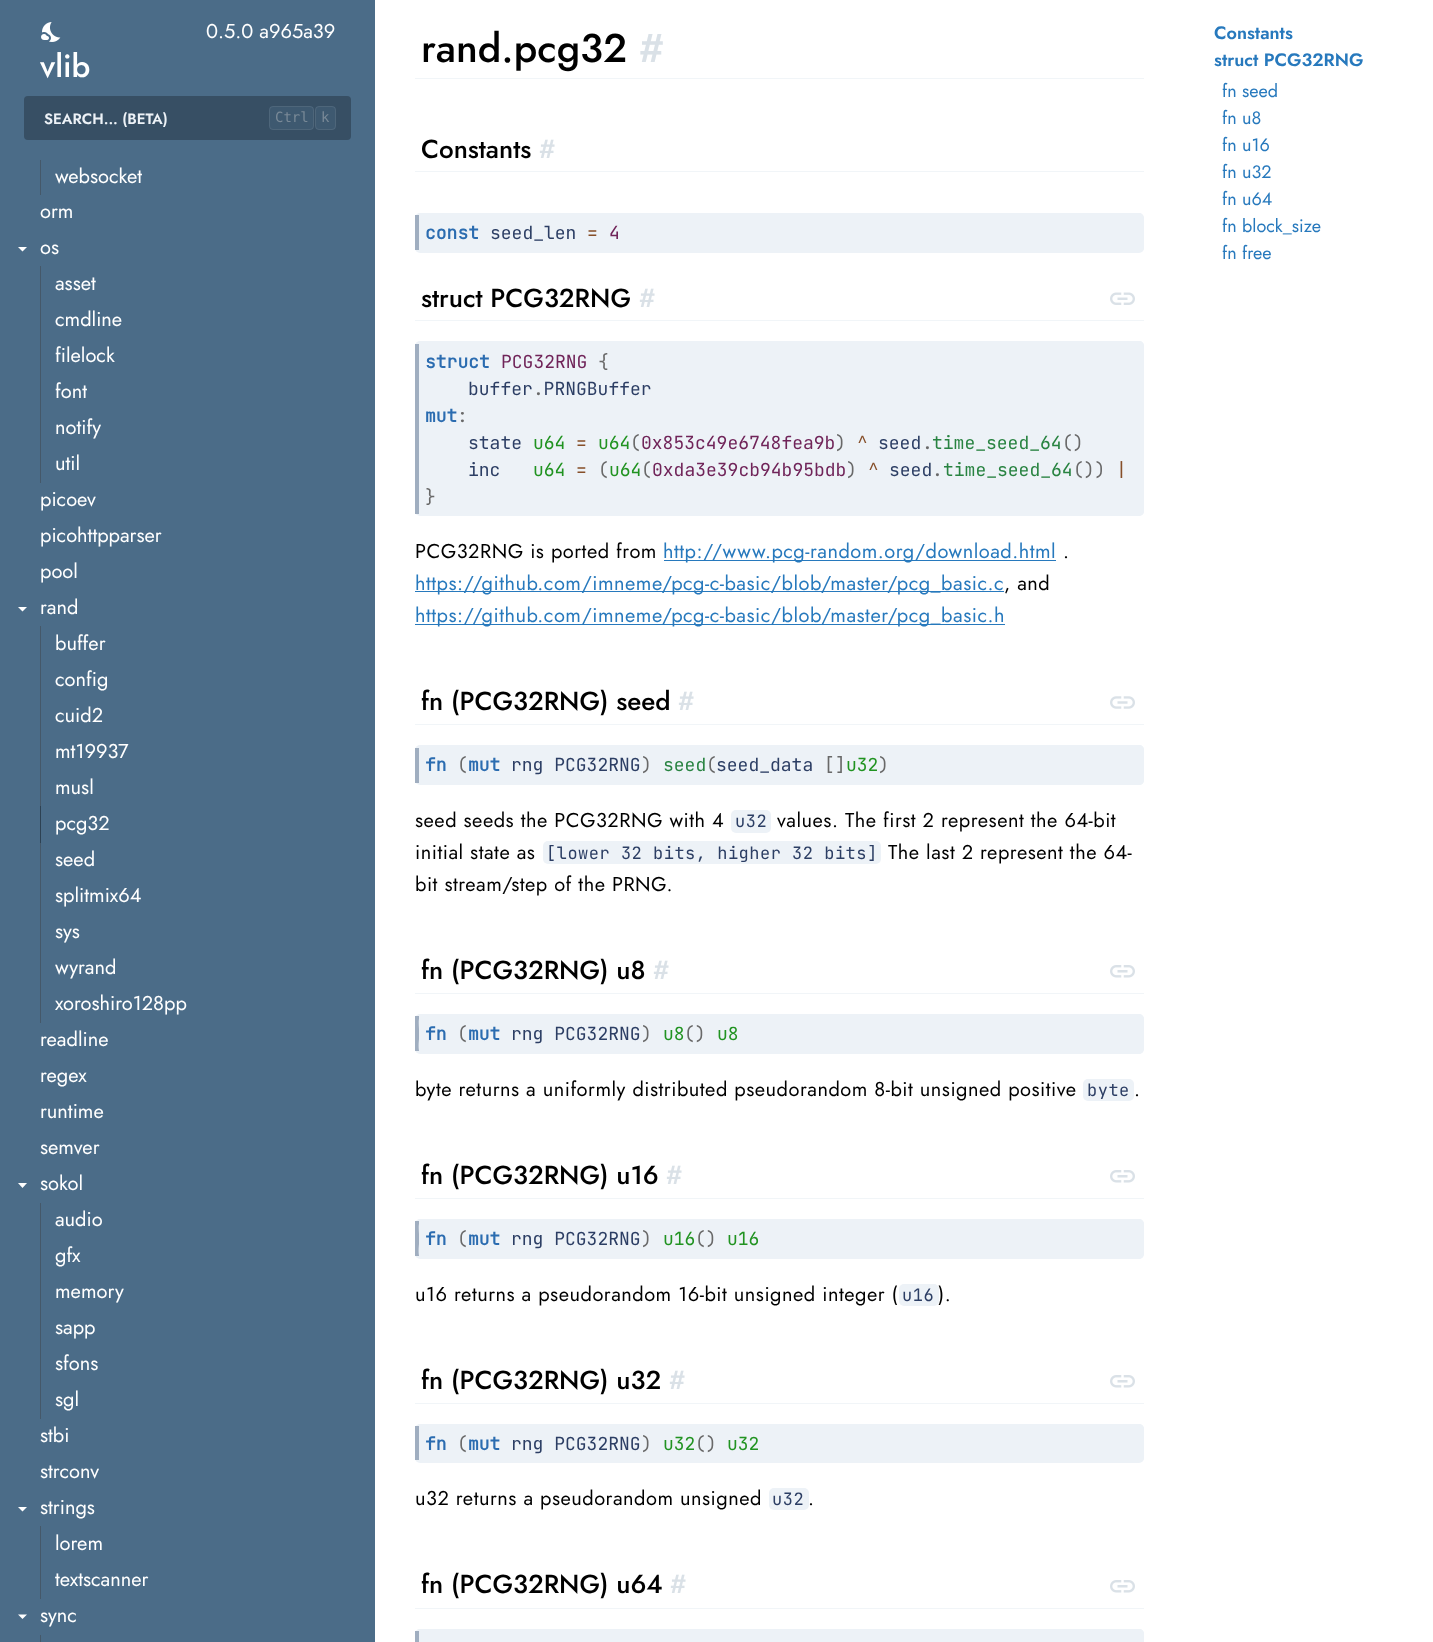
(async () => {
  const canvas = document.querySelector("canvas");
  canvas.width = 1433;
  canvas.height = 1642;
  const ctx = canvas.getContext("2d");
  ctx.miterLimit = 4;
  ctx.fontKerning = "normal";
  async function loadImage(src) {
    const img = new Image();
    img.src = src;
    await img.decode();
    return img;
  }
  let path;

  ctx.fillStyle = "#ffffff";
  ctx.fillRect(0, 0, 1433, 1642);
  for (const [x, y, w, h, color] of [
    [0, 160, 375, 1482, "#4b6c88"],
    [40, 159, 1, 36, "#455869"],
    [0, 0, 375, 160, "#4b6c88"],
  ]) {
    ctx.fillStyle = color;
    ctx.fillRect(x, y, w, h);
  }
  ctx.drawImage(await loadImage("img/1.png"), 41, 22, 20, 20);
  ctx.fillStyle = "#374f64";
  ctx.beginPath();
  ctx.roundRect(24, 96, 327, 44, 4);
  ctx.fill();
  ctx.fillStyle = "#3e5970";
  ctx.beginPath();
  ctx.roundRect(269, 106, 45, 24, 4);
  ctx.fill();
  ctx.beginPath();
  ctx.roundRect(269.5, 106.5, 44, 23, 3.5);
  ctx.strokeStyle = "rgba(121, 137, 151, 0.27)";
  ctx.stroke();
  ctx.beginPath();
  ctx.roundRect(315, 106, 21, 24, 4);
  ctx.fill();
  ctx.beginPath();
  ctx.roundRect(315.5, 106.5, 20, 23, 3.5);
  ctx.stroke();
  ctx.fillStyle = "#ffffff";
  path = new Path2D("M18 247L22.5 251.5L27 247Z");
  ctx.fill(path);
  ctx.fillStyle = "#455869";
  ctx.fillRect(40, 266, 1, 217);
  ctx.fillStyle = "#ffffff";
  path = new Path2D("M18 607L22.5 611.5L27 607Z");
  ctx.fill(path);
  for (const [x, y, w, h, color] of [
    [40, 626, 1, 180, "#455869"],
    [40, 806, 1, 37, "#2d4152"],
    [40, 843, 1, 180, "#455869"],
  ]) {
    ctx.fillStyle = color;
    ctx.fillRect(x, y, w, h);
  }
  ctx.fillStyle = "#ffffff";
  path = new Path2D("M18 1183L22.5 1188L27 1183Z");
  ctx.fill(path);
  ctx.fillStyle = "#455869";
  ctx.fillRect(40, 1203, 1, 216);
  ctx.fillStyle = "#ffffff";
  path = new Path2D("M18 1507L22.5 1511.5L27 1507Z");
  ctx.fill(path);
  ctx.fillStyle = "#455869";
  ctx.fillRect(40, 1526, 1, 73);
  ctx.fillStyle = "#ffffff";
  path = new Path2D("M18 1614.5L22.5 1619L27 1614.5Z");
  ctx.fill(path);
  for (const [x, y, w, h, color] of [
    [40, 1635, 1, 7, "#455869"],
    [415, 78, 729, 1, "#f1f5f8"],
    [415, 171, 729, 1, "#f1f5f8"],
  ]) {
    ctx.fillStyle = color;
    ctx.fillRect(x, y, w, h);
  }
  ctx.fillStyle = "#edf2f7";
  ctx.beginPath();
  ctx.roundRect(415, 213, 729, 40, 5);
  ctx.fill();
  ctx.fillStyle = "#a0aec0";
  ctx.fillRect(415, 215, 4, 35);
  ctx.fillStyle = "#edf2f7";
  path = new Path2D("M424 213H1139C1141 213 1142 214 1143 216L1144 218V248C1144 250 1142 252 1139 252H422C420 252 419 250 419 248V218C419 215 421 213 424 213Z");
  ctx.fill(path);
  ctx.fillStyle = "#f1f5f8";
  ctx.fillRect(415, 320, 729, 1);
  ctx.drawImage(await loadImage("img/2.png"), 1110, 292, 25, 13);
  ctx.fillStyle = "#edf2f7";
  ctx.beginPath();
  ctx.roundRect(415, 341, 729, 175, 5);
  ctx.fill();
  ctx.fillStyle = "#a0aec0";
  ctx.fillRect(415, 344, 4, 170);
  ctx.fillStyle = "#edf2f7";
  path = new Path2D("M1142 515C1142 515 1140 516 1139 516H424C421 516 419 514 419 511V346C419 344 420 342 422 341H1139C1142 341 1144 343 1144 346V511C1144 513 1143 514 1142 515Z");
  ctx.fill(path);
  for (const [x, y, w, h, color] of [
    [664, 560, 392, 1, "#2779bd"],
    [415, 591, 589, 1, "#2779bd"],
    [415, 624, 590, 1, "#2779bd"],
    [415, 724, 729, 1, "#f1f5f8"],
  ]) {
    ctx.fillStyle = color;
    ctx.fillRect(x, y, w, h);
  }
  ctx.drawImage(await loadImage("img/3.png"), 1110, 696, 25, 13);
  ctx.fillStyle = "#edf2f7";
  ctx.beginPath();
  ctx.roundRect(415, 745, 729, 40, 5);
  ctx.fill();
  ctx.fillStyle = "#a0aec0";
  ctx.fillRect(415, 748, 4, 35);
  ctx.fillStyle = "#edf2f7";
  path = new Path2D("M424 745C421 745 419 747 419 750V780C419 783 421 785 424 785H1139C1142 785 1144 783 1144 780V750C1144 747 1142 745 1139 745Z");
  ctx.fill(path);
  ctx.beginPath();
  ctx.roundRect(731, 810, 40, 23, 5);
  ctx.fill();
  ctx.beginPath();
  ctx.roundRect(543, 841, 338, 23, 5);
  ctx.fill();
  ctx.fillStyle = "#f1f5f8";
  ctx.fillRect(415, 993, 729, 1);
  ctx.drawImage(await loadImage("img/4.png"), 1110, 965, 25, 13);
  ctx.fillStyle = "#edf2f7";
  ctx.beginPath();
  ctx.roundRect(415, 1014, 729, 40, 5);
  ctx.fill();
  ctx.fillStyle = "#a0aec0";
  ctx.fillRect(415, 1016, 4, 35);
  ctx.save();
  ctx.beginPath();
  ctx.rect(415, 931, 729, 204);
  ctx.clip();
  ctx.fillStyle = "#edf2f7";
  path = new Path2D("M424 1014H1140C1146 1016 1144 1025 1144 1029V1044C1144 1048 1144 1054 1139 1054H422C417 1054 419 1040 419 1039V1029C419 1025 417 1014 424 1014Z");
  ctx.fill(path);
  ctx.restore();
  ctx.fillStyle = "#edf2f7";
  ctx.beginPath();
  ctx.roundRect(1083, 1079, 51, 22, 5);
  ctx.fill();
  ctx.fillStyle = "#f1f5f8";
  ctx.fillRect(415, 1198, 729, 1);
  ctx.drawImage(await loadImage("img/4.png"), 1110, 1170, 25, 13);
  ctx.fillStyle = "#edf2f7";
  ctx.beginPath();
  ctx.roundRect(415, 1219, 729, 40, 5);
  ctx.fill();
  ctx.fillStyle = "#a0aec0";
  ctx.fillRect(415, 1221, 4, 35);
  ctx.save();
  ctx.beginPath();
  ctx.rect(415, 1135, 729, 205);
  ctx.clip();
  ctx.fillStyle = "#edf2f7";
  path = new Path2D("M424 1219H1140C1146 1221 1144 1230 1144 1234V1249C1144 1253 1144 1259 1139 1259H422C417 1259 419 1245 419 1244V1234C419 1230 417 1219 424 1219Z");
  ctx.fill(path);
  ctx.restore();
  ctx.fillStyle = "#edf2f7";
  ctx.beginPath();
  ctx.roundRect(899, 1284, 40, 22, 5);
  ctx.fill();
  ctx.fillStyle = "#f1f5f8";
  ctx.fillRect(415, 1403, 729, 1);
  ctx.drawImage(await loadImage("img/4.png"), 1110, 1375, 25, 13);
  ctx.fillStyle = "#edf2f7";
  ctx.beginPath();
  ctx.roundRect(415, 1424, 729, 39, 5);
  ctx.fill();
  ctx.fillStyle = "#a0aec0";
  ctx.fillRect(415, 1426, 4, 34);
  ctx.fillStyle = "#edf2f7";
  path = new Path2D("M424 1424H1139C1140 1424 1142 1425 1142 1425C1143 1426 1144 1427 1144 1429V1458C1144 1460 1142 1462 1139 1462H422C420 1462 419 1460 419 1458V1429C419 1426 421 1424 424 1424Z");
  ctx.fill(path);
  ctx.beginPath();
  ctx.roundRect(769, 1488, 40, 22, 5);
  ctx.fill();
  ctx.fillStyle = "#f1f5f8";
  ctx.fillRect(415, 1608, 729, 1);
  ctx.drawImage(await loadImage("img/4.png"), 1110, 1580, 25, 13);
  ctx.fillStyle = "#edf2f7";
  path = new Path2D("M420 1629H1139C1142 1629 1144 1631 1144 1634V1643H415V1634C415 1631 417 1629 420 1629Z");
  ctx.fill(path);
  ctx.fillStyle = "#a0aec0";
  ctx.fillRect(415, 1631, 4, 11);
  ctx.fillStyle = "#edf2f7";
  path = new Path2D("M424 1629H1139C1140 1629 1142 1630 1142 1630C1143 1631 1144 1632 1144 1634V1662C1144 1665 1142 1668 1139 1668H422C420 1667 419 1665 419 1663V1634C419 1631 421 1629 424 1629Z");
  ctx.fill(path);
  ctx.font = "20px Jost";
  ctx.fillStyle = "#ffffff";
  ctx.fillText("0.5.0 a965a39", 206, 38);
  ctx.font = "500 32px Jost";
  ctx.fillText("vlib", 40, 77);
  ctx.font = "600 15px Jost";
  ctx.fillStyle = "#edf2f7";
  ctx.fillText("SEARCH... (BETA)", 44, 124);
  ctx.font = "14px DejaVu Sans Mono";
  ctx.fillStyle = "#798997";
  ctx.fillText("Ctrl", 275, 122);
  ctx.fillText("k", 321, 122);
  ctx.font = "20px Jost";
  ctx.fillStyle = "#ffffff";
  for (const [text, x, y] of [
    ["websocket", 55, 183],
    ["orm", 40, 218],
    ["os", 40, 254],
    ["asset", 55, 290],
    ["cmdline", 55, 326],
    ["filelock", 55, 362],
    ["font", 55, 398],
    ["notify", 55, 434],
    ["util", 55, 470],
    ["picoev", 40, 506],
    ["picohttpparser", 40, 542],
    ["pool", 40, 578],
    ["rand", 40, 614],
    ["buffer", 55, 650],
    ["config", 55, 686],
    ["cuid2", 55, 722],
    ["mt19937", 55, 758],
    ["musl", 55, 794],
    ["pcg32", 55, 830],
    ["seed", 55, 866],
    ["splitmix64", 55, 902],
    ["sys", 55, 938],
    ["wyrand", 55, 974],
    ["xoroshiro128pp", 55, 1010],
    ["readline", 40, 1046],
    ["regex", 40, 1082],
    ["runtime", 40, 1118],
    ["semver", 40, 1154],
    ["sokol", 40, 1190],
    ["audio", 55, 1226],
    ["gfx", 55, 1262],
    ["memory", 55, 1298],
    ["sapp", 55, 1334],
    ["sfons", 55, 1370],
    ["sgl", 55, 1406],
    ["stbi", 40, 1442],
    ["strconv", 40, 1478],
    ["strings", 40, 1514],
    ["lorem", 55, 1550],
    ["textscanner", 55, 1586],
    ["sync", 40, 1622],
  ]) {
    ctx.fillText(text, x, y);
  }
  ctx.font = "500 40px Jost";
  ctx.fillStyle = "#000000";
  ctx.fillText("rand.pcg32", 421, 62);
  ctx.fillStyle = "#dae1e7";
  ctx.fillText("#", 639, 62);
  ctx.font = "500 26px Jost";
  ctx.fillStyle = "#000000";
  ctx.fillText("Constants", 421, 158);
  ctx.fillStyle = "#dae1e7";
  ctx.fillText("#", 539, 158);
  ctx.font = "bold 18px JetBrains Mono";
  ctx.fillStyle = "#2b6cb0";
  ctx.fillText("const", 425, 239);
  ctx.font = "18px JetBrains Mono";
  ctx.fillStyle = "#2c3e64";
  ctx.fillText("seed_len", 490, 239);
  ctx.fillStyle = "#864f29";
  ctx.fillText("=", 587, 239);
  ctx.fillStyle = "#702459";
  ctx.fillText("4", 609, 239);
  ctx.font = "500 26px Jost";
  ctx.fillStyle = "#000000";
  ctx.fillText("struct PCG32RNG", 421, 307);
  ctx.fillStyle = "#dae1e7";
  ctx.fillText("#", 639, 307);
  ctx.font = "bold 18px JetBrains Mono";
  ctx.fillStyle = "#2b6cb0";
  ctx.fillText("struct", 425, 368);
  ctx.font = "18px JetBrains Mono";
  ctx.fillStyle = "#702459";
  ctx.fillText("PCG32RNG", 501, 368);
  ctx.fillStyle = "#696969";
  ctx.fillText("{", 598, 368);
  ctx.fillStyle = "#2c3e64";
  ctx.fillText("buffer PRNGBuffer", 468, 395);
  ctx.fillStyle = "#696969";
  ctx.fillText(".", 533, 395);
  ctx.font = "bold 18px JetBrains Mono";
  ctx.fillStyle = "#2b6cb0";
  ctx.fillText("mut", 425, 422);
  ctx.font = "18px JetBrains Mono";
  ctx.fillStyle = "#696969";
  ctx.fillText(":", 457, 422);
  ctx.fillStyle = "#2c3e64";
  ctx.fillText("state", 468, 449);
  ctx.fillStyle = "#219321";
  ctx.fillText("u64", 533, 449);
  ctx.fillStyle = "#864f29";
  ctx.fillText("=", 576, 449);
  ctx.fillStyle = "#219321";
  ctx.fillText("u64", 598, 449);
  ctx.fillStyle = "#696969";
  ctx.fillText("(", 630, 449);
  ctx.fillStyle = "#702459";
  ctx.fillText("0x853c49e6748fea9b", 641, 449);
  ctx.fillStyle = "#696969";
  ctx.fillText(")", 835, 449);
  ctx.fillStyle = "#864f29";
  ctx.fillText("^", 857, 449);
  ctx.fillStyle = "#2c3e64";
  ctx.fillText("seed", 878, 449);
  ctx.fillStyle = "#288341";
  ctx.fillText("time_seed_64", 932, 449);
  ctx.fillStyle = "#696969";
  ctx.fillText("()", 1062, 449);
  ctx.fillText(".", 922, 449);
  ctx.fillStyle = "#2c3e64";
  ctx.fillText("inc", 468, 476);
  ctx.fillStyle = "#219321";
  ctx.fillText("u64", 533, 476);
  ctx.fillStyle = "#864f29";
  ctx.fillText("=", 576, 476);
  ctx.fillStyle = "#696969";
  ctx.fillText("(", 598, 476);
  ctx.fillStyle = "#219321";
  ctx.fillText("u64", 609, 476);
  ctx.fillStyle = "#696969";
  ctx.fillText("(", 641, 476);
  ctx.fillStyle = "#702459";
  ctx.fillText("0xda3e39cb94b95bdb", 652, 476);
  ctx.fillStyle = "#696969";
  ctx.fillText(")", 846, 476);
  ctx.fillStyle = "#864f29";
  ctx.fillText("^", 868, 476);
  ctx.fillStyle = "#2c3e64";
  ctx.fillText("seed", 889, 476);
  ctx.fillStyle = "#288341";
  ctx.fillText("time_seed_64", 943, 476);
  ctx.fillStyle = "#696969";
  ctx.fillText("())", 1073, 476);
  ctx.fillStyle = "#864f29";
  ctx.fillText("|", 1116, 476);
  ctx.fillStyle = "#696969";
  ctx.fillText(".", 932, 476);
  ctx.fillText("}", 425, 503);
  ctx.letterSpacing = "0.5px";
  ctx.font = "20px Jost";
  ctx.fillStyle = "#000000";
  ctx.fillText("PCG32RNG is ported from", 415, 558);
  ctx.fillStyle = "#2779bd";
  ctx.fillText("http://www.pcg-random.org/download.html", 663, 558);
  ctx.fillStyle = "#000000";
  ctx.fillText(".", 1063, 558);
  ctx.fillStyle = "#2779bd";
  ctx.fillText("https://github.com/imneme/pcg-c-basic/blob/master/pcg_basic.c", 415, 590);
  ctx.fillStyle = "#000000";
  ctx.fillText(", and", 1004, 590);
  ctx.fillStyle = "#2779bd";
  ctx.fillText("https://github.com/imneme/pcg-c-basic/blob/master/pcg_basic.h", 415, 622);
  ctx.letterSpacing = "0px";
  ctx.font = "500 26px Jost";
  ctx.fillStyle = "#000000";
  ctx.fillText("fn (PCG32RNG) seed", 421, 710);
  ctx.fillStyle = "#dae1e7";
  ctx.fillText("#", 678, 710);
  ctx.font = "bold 18px JetBrains Mono";
  ctx.fillStyle = "#2b6cb0";
  ctx.fillText("fn", 425, 771);
  ctx.font = "18px JetBrains Mono";
  ctx.fillStyle = "#696969";
  ctx.fillText("(", 457, 771);
  ctx.font = "bold 18px JetBrains Mono";
  ctx.fillStyle = "#2b6cb0";
  ctx.fillText("mut", 468, 771);
  ctx.font = "18px JetBrains Mono";
  ctx.fillStyle = "#2c3e64";
  ctx.fillText("rng PCG32RNG", 511, 771);
  ctx.fillStyle = "#696969";
  ctx.fillText(")", 641, 771);
  ctx.fillStyle = "#288341";
  ctx.fillText("seed", 663, 771);
  ctx.fillStyle = "#696969";
  ctx.fillText("(", 706, 771);
  ctx.fillStyle = "#2c3e64";
  ctx.fillText("seed_data", 716, 771);
  ctx.fillStyle = "#696969";
  ctx.fillText("[]", 824, 771);
  ctx.fillStyle = "#219321";
  ctx.fillText("u32", 846, 771);
  ctx.fillStyle = "#696969";
  ctx.fillText(")", 878, 771);
  ctx.letterSpacing = "0.5px";
  ctx.font = "20px Jost";
  ctx.fillStyle = "#000000";
  ctx.fillText("seed seeds the PCG32RNG with 4", 415, 827);
  ctx.font = "17px JetBrains Mono";
  ctx.fillStyle = "#2c3e64";
  ctx.fillText("u32", 735, 827);
  ctx.font = "20px Jost";
  ctx.fillStyle = "#000000";
  ctx.fillText("values. The first 2 represent the 64-bit", 777, 827);
  ctx.fillText("initial state as", 415, 859);
  ctx.font = "17px JetBrains Mono";
  ctx.fillStyle = "#2c3e64";
  ctx.fillText("[lower 32 bits, higher 32 bits]", 546, 859);
  ctx.font = "20px Jost";
  ctx.fillStyle = "#000000";
  ctx.fillText("The last 2 represent the 64-", 888, 859);
  ctx.fillText("bit stream/step of the PRNG.", 415, 891);
  ctx.letterSpacing = "0px";
  ctx.font = "500 26px Jost";
  ctx.fillText("fn (PCG32RNG) u8", 421, 979);
  ctx.fillStyle = "#dae1e7";
  ctx.fillText("#", 653, 979);
  ctx.font = "bold 18px JetBrains Mono";
  ctx.fillStyle = "#2b6cb0";
  ctx.fillText("fn", 425, 1040);
  ctx.font = "18px JetBrains Mono";
  ctx.fillStyle = "#696969";
  ctx.fillText("(", 457, 1040);
  ctx.font = "bold 18px JetBrains Mono";
  ctx.fillStyle = "#2b6cb0";
  ctx.fillText("mut", 468, 1040);
  ctx.font = "18px JetBrains Mono";
  ctx.fillStyle = "#2c3e64";
  ctx.fillText("rng PCG32RNG", 511, 1040);
  ctx.fillStyle = "#696969";
  ctx.fillText(")", 641, 1040);
  ctx.fillStyle = "#219321";
  ctx.fillText("u8", 663, 1040);
  ctx.fillStyle = "#696969";
  ctx.fillText("()", 684, 1040);
  ctx.fillStyle = "#219321";
  ctx.fillText("u8", 717, 1040);
  ctx.letterSpacing = "0.5px";
  ctx.font = "20px Jost";
  ctx.fillStyle = "#000000";
  ctx.fillText("byte returns a uniformly distributed pseudorandom 8-bit unsigned positive", 415, 1096);
  ctx.font = "17px JetBrains Mono";
  ctx.fillStyle = "#2c3e64";
  ctx.fillText("byte", 1087, 1096);
  ctx.font = "20px Jost";
  ctx.fillStyle = "#000000";
  ctx.fillText(".", 1134, 1096);
  ctx.letterSpacing = "0px";
  ctx.font = "500 26px Jost";
  ctx.fillText("fn (PCG32RNG) u16", 421, 1184);
  ctx.fillStyle = "#dae1e7";
  ctx.fillText("#", 666, 1184);
  ctx.font = "bold 18px JetBrains Mono";
  ctx.fillStyle = "#2b6cb0";
  ctx.fillText("fn", 425, 1245);
  ctx.font = "18px JetBrains Mono";
  ctx.fillStyle = "#696969";
  ctx.fillText("(", 457, 1245);
  ctx.font = "bold 18px JetBrains Mono";
  ctx.fillStyle = "#2b6cb0";
  ctx.fillText("mut", 468, 1245);
  ctx.font = "18px JetBrains Mono";
  ctx.fillStyle = "#2c3e64";
  ctx.fillText("rng PCG32RNG", 511, 1245);
  ctx.fillStyle = "#696969";
  ctx.fillText(")", 641, 1245);
  ctx.fillStyle = "#219321";
  ctx.fillText("u16", 663, 1245);
  ctx.fillStyle = "#696969";
  ctx.fillText("()", 695, 1245);
  ctx.fillStyle = "#219321";
  ctx.fillText("u16", 727, 1245);
  ctx.letterSpacing = "0.5px";
  ctx.font = "20px Jost";
  ctx.fillStyle = "#000000";
  ctx.fillText("u16 returns a pseudorandom 16-bit unsigned integer (", 415, 1301);
  ctx.font = "17px JetBrains Mono";
  ctx.fillStyle = "#2c3e64";
  ctx.fillText("u16", 902, 1301);
  ctx.font = "20px Jost";
  ctx.fillStyle = "#000000";
  ctx.fillText(").", 938, 1301);
  ctx.letterSpacing = "0px";
  ctx.font = "500 26px Jost";
  ctx.fillText("fn (PCG32RNG) u32", 421, 1389);
  ctx.fillStyle = "#dae1e7";
  ctx.fillText("#", 669, 1389);
  ctx.font = "bold 18px JetBrains Mono";
  ctx.fillStyle = "#2b6cb0";
  ctx.fillText("fn", 425, 1450);
  ctx.font = "18px JetBrains Mono";
  ctx.fillStyle = "#696969";
  ctx.fillText("(", 457, 1450);
  ctx.font = "bold 18px JetBrains Mono";
  ctx.fillStyle = "#2b6cb0";
  ctx.fillText("mut", 468, 1450);
  ctx.font = "18px JetBrains Mono";
  ctx.fillStyle = "#2c3e64";
  ctx.fillText("rng PCG32RNG", 511, 1450);
  ctx.fillStyle = "#696969";
  ctx.fillText(")", 641, 1450);
  ctx.fillStyle = "#219321";
  ctx.fillText("u32", 663, 1450);
  ctx.fillStyle = "#696969";
  ctx.fillText("()", 695, 1450);
  ctx.fillStyle = "#219321";
  ctx.fillText("u32", 727, 1450);
  ctx.letterSpacing = "0.5px";
  ctx.font = "20px Jost";
  ctx.fillStyle = "#000000";
  ctx.fillText("u32 returns a pseudorandom unsigned", 415, 1505);
  ctx.font = "17px JetBrains Mono";
  ctx.fillStyle = "#2c3e64";
  ctx.fillText("u32", 772, 1505);
  ctx.font = "20px Jost";
  ctx.fillStyle = "#000000";
  ctx.fillText(".", 808, 1505);
  ctx.letterSpacing = "0px";
  ctx.font = "500 26px Jost";
  ctx.fillText("fn (PCG32RNG) u64", 421, 1593);
  ctx.fillStyle = "#dae1e7";
  ctx.fillText("#", 670, 1593);
  ctx.font = "600 18px Jost";
  ctx.fillStyle = "#2779bd";
  ctx.fillText("Constants", 1214, 39);
  ctx.fillText("struct PCG32RNG", 1214, 66);
  ctx.font = "18px Jost";
  for (const [text, x, y] of [
    ["fn seed", 1222, 97],
    ["fn u8", 1222, 124],
    ["fn u16", 1222, 151],
    ["fn u32", 1222, 178],
    ["fn u64", 1222, 205],
    ["fn block_size", 1222, 232],
    ["fn free", 1222, 259],
  ]) {
    ctx.fillText(text, x, y);
  }
})();
